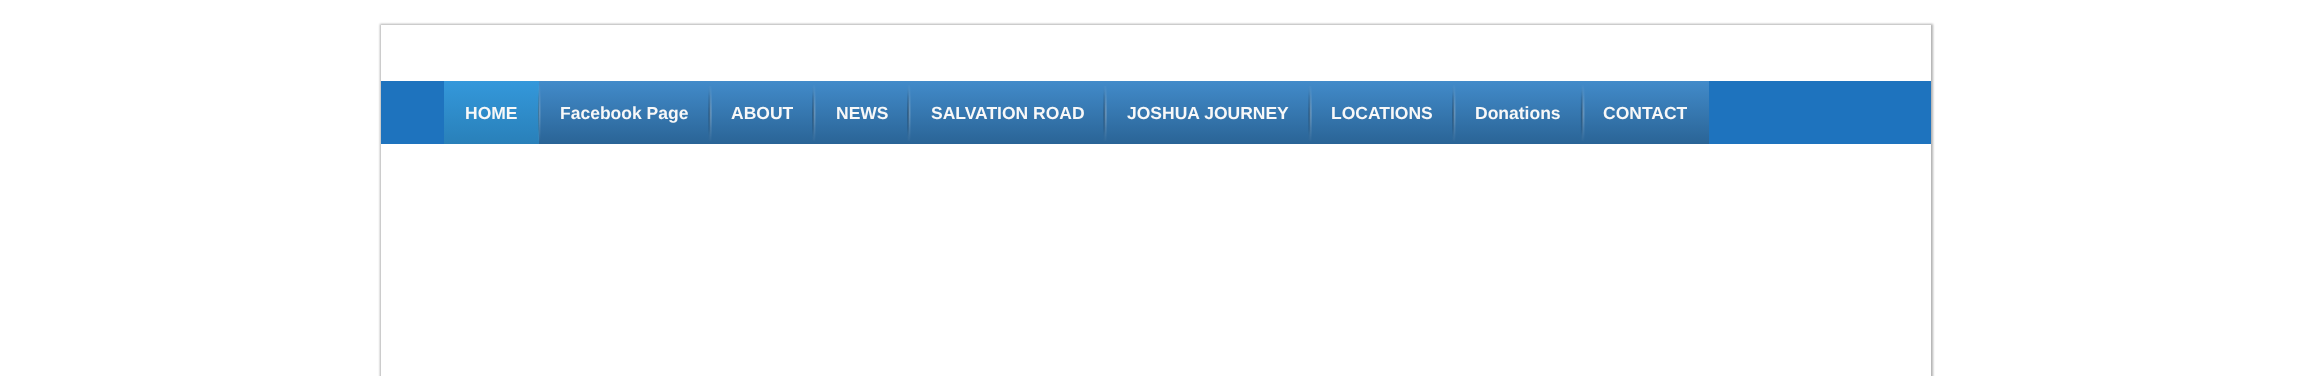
(async () => {
  const canvas = document.querySelector("canvas");
  canvas.width = 2312;
  canvas.height = 376;
  const ctx = canvas.getContext("2d");
  ctx.miterLimit = 4;
  ctx.fontKerning = "normal";
  async function loadImage(src) {
    const img = new Image();
    img.src = src;
    await img.decode();
    return img;
  }
  let gradient;

  ctx.fillStyle = "#ffffff";
  ctx.fillRect(0, 0, 2312, 376);
  ctx.fillStyle = "rgba(0, 0, 0, 0.3)";
  ctx.filter = "blur(1px)";
  ctx.beginPath();
  ctx.rect(380, 24, 1553, 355);
  ctx.fill();
  ctx.filter = "none";
  ctx.fillStyle = "#ffffff";
  ctx.fillRect(381, 25, 1550, 56);
  ctx.fillStyle = "#1e73be";
  ctx.fillRect(381, 81, 1550, 63);
  gradient = ctx.createLinearGradient(1076, 81, 1076, 144);
  gradient.addColorStop(0, "#428bca");
  gradient.addColorStop(1, "#2a6496");
  ctx.fillStyle = gradient;
  ctx.fillRect(539, 81, 1170, 63);
  gradient = ctx.createLinearGradient(491, 81, 491, 144);
  gradient.addColorStop(0, "#3498db");
  gradient.addColorStop(1, "#2980b9");
  ctx.fillStyle = gradient;
  ctx.fillRect(444, 81, 95, 63);
  ctx.drawImage(await loadImage("img/1.png"), 538, 85, 3, 56);
  ctx.drawImage(await loadImage("img/2.png"), 708, 86, 4, 55);
  ctx.drawImage(await loadImage("img/3.png"), 812, 85, 4, 56);
  ctx.drawImage(await loadImage("img/3.png"), 907, 85, 4, 56);
  ctx.drawImage(await loadImage("img/2.png"), 1103, 86, 4, 55);
  ctx.drawImage(await loadImage("img/2.png"), 1308, 86, 4, 55);
  ctx.drawImage(await loadImage("img/3.png"), 1452, 85, 4, 56);
  ctx.drawImage(await loadImage("img/4.png"), 1580, 85, 5, 56);
  ctx.fillStyle = "#ffffff";
  ctx.fillRect(381, 144, 1550, 232);
  ctx.font = "bold 17.5px Liberation Sans";
  ctx.fillStyle = "#f8f8f8";
  for (const [text, x, y] of [
    ["HOME", 465, 119],
    ["Facebook Page", 560, 119],
    ["ABOUT", 731, 119],
    ["NEWS", 836, 119],
    ["SALVATION ROAD", 931, 119],
    ["JOSHUA JOURNEY", 1127, 119],
    ["LOCATIONS", 1331, 119],
    ["Donations", 1475, 119],
    ["CONTACT", 1603, 119],
  ]) {
    ctx.fillText(text, x, y);
  }
})();
